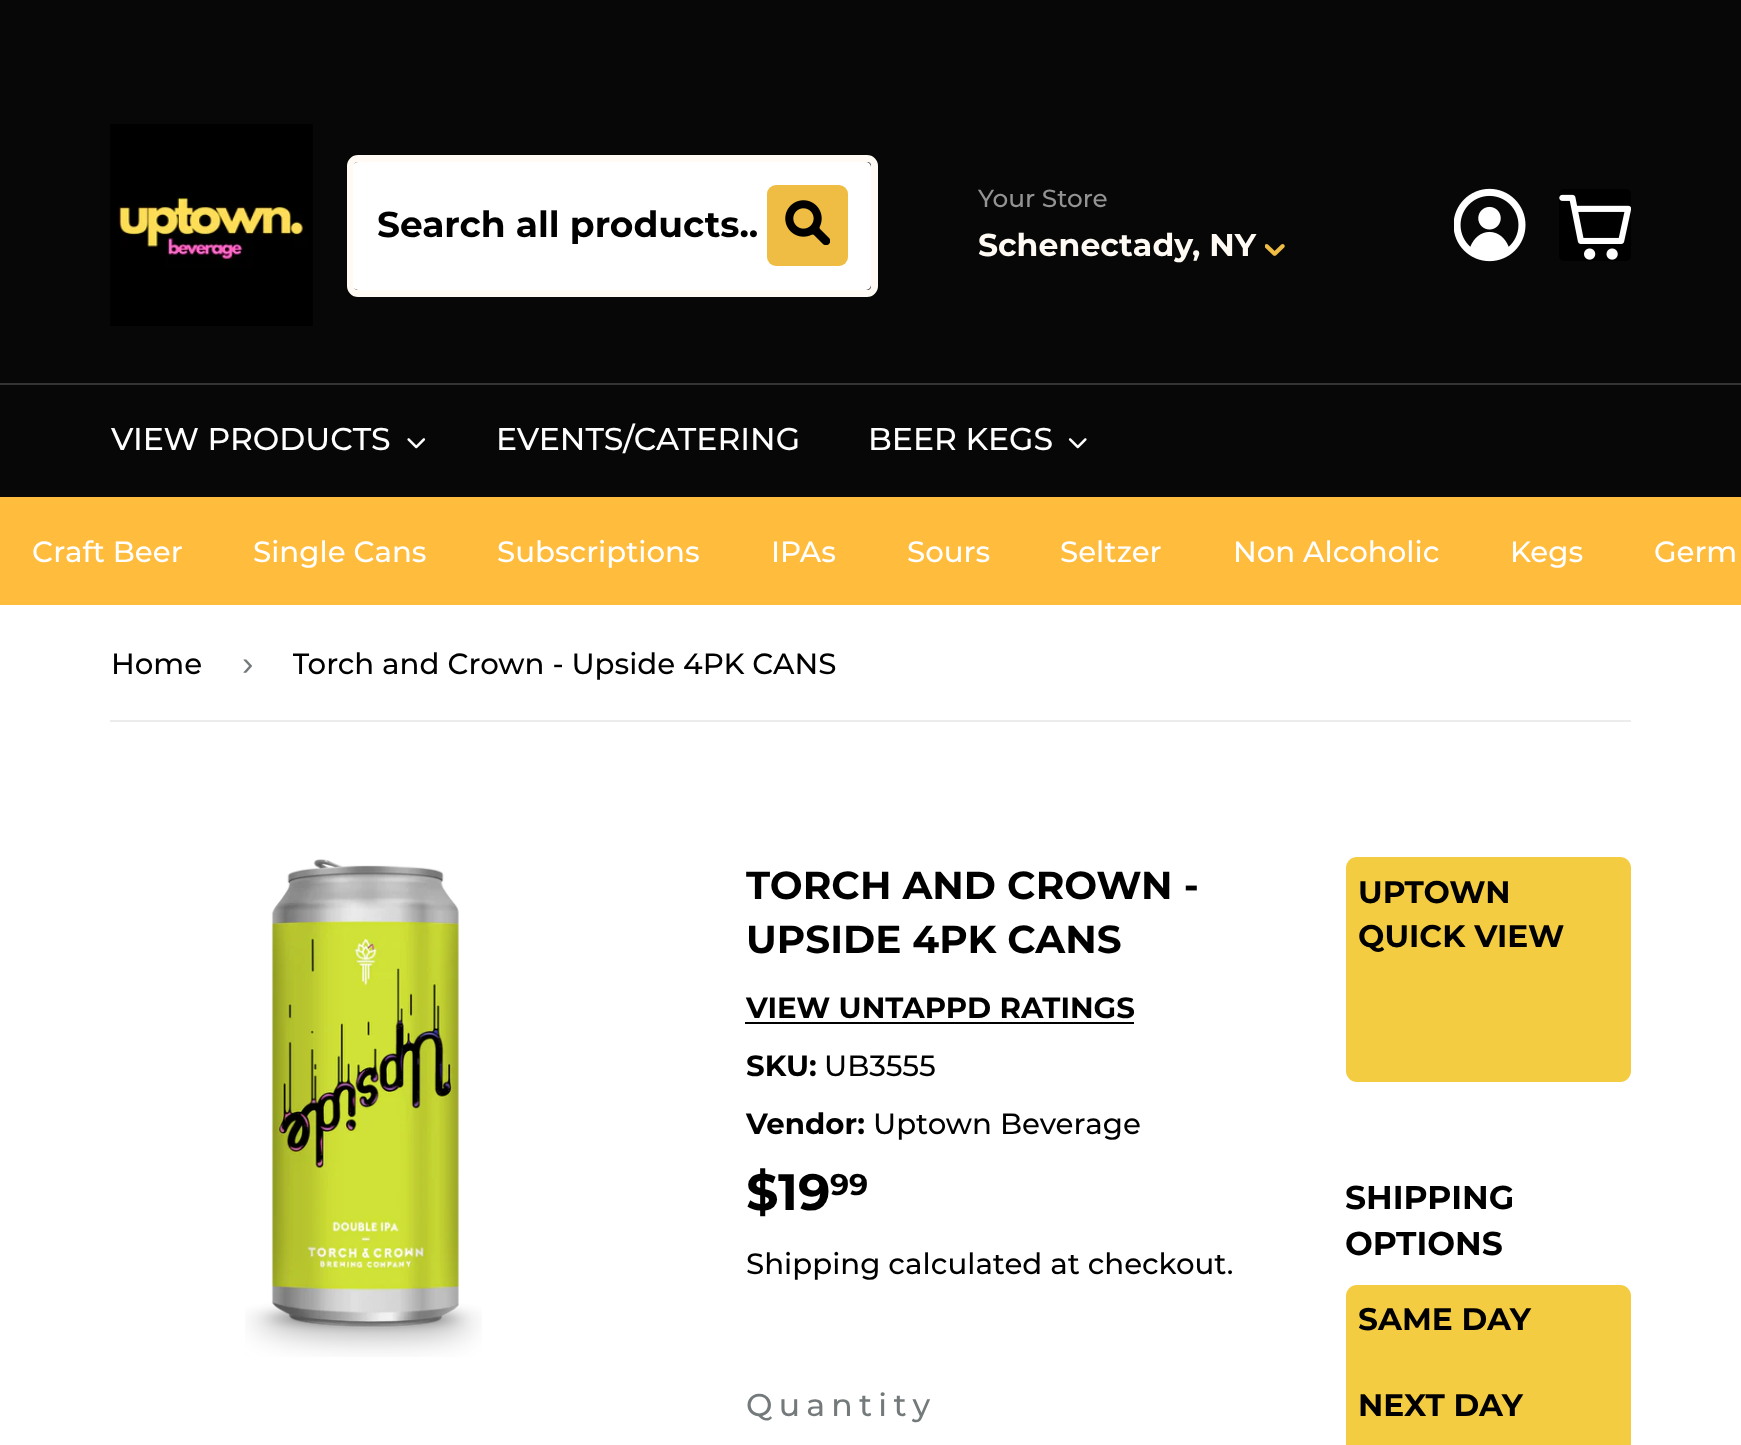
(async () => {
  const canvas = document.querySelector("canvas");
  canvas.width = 1741;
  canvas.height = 1445;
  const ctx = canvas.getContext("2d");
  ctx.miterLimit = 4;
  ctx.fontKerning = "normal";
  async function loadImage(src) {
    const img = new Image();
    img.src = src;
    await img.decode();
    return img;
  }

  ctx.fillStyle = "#ffffff";
  ctx.fillRect(0, 0, 1741, 1445);
  ctx.fillStyle = "#070707";
  ctx.fillRect(0, 0, 1741, 383);
  ctx.drawImage(await loadImage("img/1.png"), 110, 124, 203, 202);
  ctx.beginPath();
  ctx.roundRect(350.5, 158.5, 524, 135, 7.5);
  ctx.strokeStyle = "#fffbf4";
  ctx.lineWidth = 7;
  ctx.stroke();
  ctx.fillStyle = "#ffffff";
  ctx.beginPath();
  ctx.roundRect(353, 162, 518, 128, 5);
  ctx.fill();
  ctx.fillStyle = "#efbd44";
  ctx.beginPath();
  ctx.roundRect(767, 185, 81, 81, 9);
  ctx.fill();
  ctx.drawImage(await loadImage("img/2.png"), 785, 200, 45, 45);
  ctx.drawImage(await loadImage("img/3.png"), 1265, 244, 20, 12);
  ctx.drawImage(await loadImage("img/4.png"), 1454, 188, 72, 74);
  ctx.fillStyle = "#000000";
  ctx.beginPath();
  ctx.roundRect(1559, 189, 72, 72, 5);
  ctx.fill();
  ctx.drawImage(await loadImage("img/5.png"), 1559, 194, 72, 66);
  ctx.fillStyle = "#070707";
  ctx.fillRect(0, 385, 1741, 112);
  ctx.fillStyle = "#333333";
  ctx.fillRect(0, 383, 1741, 2);
  ctx.drawImage(await loadImage("img/6.png"), 407, 438, 19, 11);
  ctx.drawImage(await loadImage("img/7.png"), 1068, 438, 19, 11);
  ctx.fillStyle = "#ffbc3d";
  ctx.fillRect(0, 497, 1741, 108);
  ctx.fillStyle = "#ececec";
  ctx.fillRect(110, 720, 1521, 2);
  ctx.drawImage(await loadImage("img/8.png"), 245, 859, 237, 498);
  ctx.fillStyle = "#000000";
  ctx.fillRect(745, 1022, 389, 2);
  ctx.fillStyle = "#f4cc41";
  ctx.beginPath();
  ctx.roundRect(1346, 857, 285, 225, 11);
  ctx.fill();
  ctx.beginPath();
  ctx.roundRect(1346, 1285, 285, 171, 11);
  ctx.fill();
  ctx.font = "bold 36px Montserrat";
  ctx.fillStyle = "#000000";
  ctx.fillText("Search all products..", 377, 237);
  ctx.font = "500 24.75px Montserrat";
  ctx.fillStyle = "#939393";
  ctx.fillText("Your Store", 978, 207);
  ctx.font = "bold 31.5px Montserrat";
  ctx.fillStyle = "#fffbf4";
  ctx.fillText("Schenectady, NY", 978, 256);
  ctx.font = "500 31.5px Montserrat";
  ctx.fillStyle = "#ffffff";
  for (const [text, x, y] of [
    ["VIEW PRODUCTS", 111, 450],
    ["EVENTS/CATERING", 496, 450],
    ["BEER KEGS", 868, 450],
  ]) {
    ctx.fillText(text, x, y);
  }
  ctx.font = "500 29.25px Montserrat";
  for (const [text, x, y] of [
    ["Craft Beer", 32, 562],
    ["Single Cans", 253, 562],
    ["Subscriptions", 497, 562],
    ["IPAs", 771, 562],
    ["Sours", 907, 562],
    ["Seltzer", 1060, 562],
    ["Non Alcoholic", 1233, 562],
    ["Kegs", 1510, 562],
    ["Germ", 1654, 562],
  ]) {
    ctx.fillText(text, x, y);
  }
  ctx.fillStyle = "#000000";
  ctx.fillText("Home", 111, 674);
  ctx.font = "34px Liberation Sans";
  ctx.fillStyle = "#747a7b";
  ctx.fillText("›", 242, 675);
  ctx.save();
  ctx.beginPath();
  ctx.rect(293, 605, 562, 115);
  ctx.clip();
  ctx.font = "500 29.25px Montserrat";
  ctx.fillStyle = "#000000";
  ctx.fillText("Torch and Crown - Upside 4PK CANS", 292, 674);
  ctx.restore();
  ctx.font = "bold 39px Montserrat";
  ctx.fillStyle = "#000000";
  ctx.fillText("TORCH AND CROWN -", 746, 899);
  ctx.fillText("UPSIDE 4PK CANS", 746, 953);
  ctx.font = "bold 29.25px Montserrat";
  ctx.fillText("VIEW UNTAPPD RATINGS", 746, 1018);
  ctx.fillText("SKU:", 746, 1076);
  ctx.font = "500 29.25px Montserrat";
  ctx.fillText("UB3555", 824, 1076);
  ctx.font = "bold 29.25px Montserrat";
  ctx.fillText("Vendor:", 746, 1134);
  ctx.font = "500 29.25px Montserrat";
  ctx.fillText("Uptown Beverage", 873, 1134);
  ctx.font = "bold 51px Montserrat";
  ctx.fillText("$19", 746, 1210);
  ctx.font = "bold 30px Montserrat";
  ctx.fillText("99", 830, 1195);
  ctx.font = "500 29.25px Montserrat";
  ctx.fillText("Shipping calculated at checkout.", 746, 1274);
  ctx.letterSpacing = "6.25px";
  ctx.font = "500 31.5px Montserrat";
  ctx.fillStyle = "#747a7b";
  ctx.fillText("Quantity", 746, 1416);
  ctx.letterSpacing = "0px";
  ctx.font = "bold 31.25px Montserrat";
  ctx.fillStyle = "#000000";
  ctx.fillText("UPTOWN", 1358, 903);
  ctx.fillText("QUICK VIEW", 1358, 947);
  ctx.font = "bold 33px Montserrat";
  ctx.fillText("SHIPPING", 1345, 1209);
  ctx.fillText("OPTIONS", 1345, 1255);
  ctx.font = "bold 31.25px Montserrat";
  ctx.fillText("SAME DAY", 1358, 1330);
  ctx.fillText("NEXT DAY", 1358, 1416);
})();
